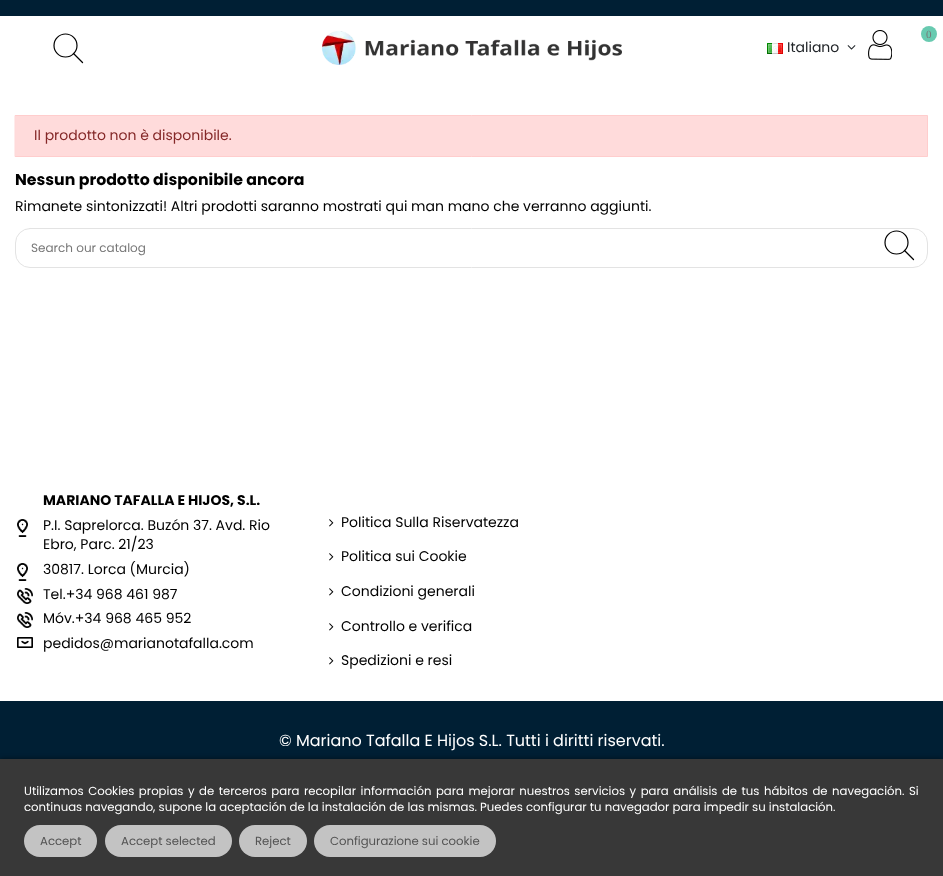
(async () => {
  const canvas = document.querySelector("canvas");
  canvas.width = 943;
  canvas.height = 876;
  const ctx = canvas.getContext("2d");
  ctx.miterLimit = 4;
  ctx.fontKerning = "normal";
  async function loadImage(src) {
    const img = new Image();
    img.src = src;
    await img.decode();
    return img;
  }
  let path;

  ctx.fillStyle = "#ffffff";
  ctx.fillRect(0, 0, 943, 876);
  ctx.fillStyle = "#001f34";
  ctx.fillRect(0, 0, 943, 16);
  ctx.beginPath();
  ctx.arc(65.5, 45.5, 11.5, 0, Math.PI * 2);
  ctx.strokeStyle = "#000000";
  ctx.lineWidth = 1.2;
  ctx.stroke();
  path = new Path2D("M73.5 53.5L82.5 62.5");
  ctx.lineWidth = 1.3;
  ctx.lineCap = "round";
  ctx.stroke(path);
  ctx.drawImage(await loadImage("img/1.png"), 322, 31, 300, 34);
  ctx.drawImage(await loadImage("img/2.png"), 868, 30, 24, 30);
  ctx.fillStyle = "#68cab0";
  ctx.beginPath();
  ctx.arc(929, 34, 8, 0, Math.PI * 2);
  ctx.fill();
  ctx.drawImage(await loadImage("img/3.png"), 767, 43, 16, 11);
  ctx.drawImage(await loadImage("img/4.png"), 847, 45, 9, 5);
  ctx.fillStyle = "#ffdbdb";
  ctx.beginPath();
  ctx.rect(15.5, 115.5, 912, 41);
  ctx.fill();
  ctx.strokeStyle = "#ffcdcd";
  ctx.lineWidth = 1;
  ctx.stroke();
  ctx.beginPath();
  ctx.roundRect(15.5, 228.5, 912, 39, 14.5);
  ctx.strokeStyle = "#e3e3e3";
  ctx.stroke();
  ctx.beginPath();
  ctx.arc(896.5, 242.5, 11.5, 0, Math.PI * 2);
  ctx.strokeStyle = "#000000";
  ctx.lineWidth = 1.2;
  ctx.stroke();
  path = new Path2D("M904.5 250.5L913.5 259.5");
  ctx.lineWidth = 1.3;
  ctx.stroke(path);
  ctx.drawImage(await loadImage("img/5.png"), 17, 519, 11, 18);
  ctx.drawImage(await loadImage("img/5.png"), 17, 563, 11, 18);
  ctx.drawImage(await loadImage("img/6.png"), 17, 588, 16, 16);
  ctx.drawImage(await loadImage("img/6.png"), 17, 612, 16, 16);
  ctx.drawImage(await loadImage("img/7.png"), 17, 637, 16, 11);
  ctx.drawImage(await loadImage("img/8.png"), 329, 519, 5, 8);
  ctx.drawImage(await loadImage("img/8.png"), 329, 553, 5, 8);
  ctx.drawImage(await loadImage("img/8.png"), 329, 588, 5, 8);
  ctx.drawImage(await loadImage("img/8.png"), 329, 623, 5, 8);
  ctx.drawImage(await loadImage("img/8.png"), 329, 657, 5, 8);
  ctx.fillStyle = "#001f34";
  ctx.fillRect(0, 701, 943, 58);
  ctx.fillStyle = "rgba(0, 0, 0, 0.5)";
  ctx.filter = "blur(2.5px)";
  ctx.beginPath();
  ctx.rect(0, 759, 943, 117);
  ctx.fill();
  ctx.filter = "none";
  ctx.fillStyle = "#383838";
  ctx.fillRect(0, 759, 943, 117);
  ctx.fillStyle = "#c3c3c3";
  ctx.beginPath();
  ctx.roundRect(24, 825, 73, 32, 16);
  ctx.fill();
  ctx.beginPath();
  ctx.roundRect(105, 825, 127, 32, 16);
  ctx.fill();
  ctx.beginPath();
  ctx.roundRect(239, 825, 68, 32, 16);
  ctx.fill();
  ctx.beginPath();
  ctx.roundRect(314, 825, 182, 32, 16);
  ctx.fill();
  ctx.font = "11px Liberation Serif";
  ctx.fillStyle = "#777777";
  ctx.fillText("0", 926, 38);
  ctx.font = "14px Poppins";
  ctx.fillStyle = "#212529";
  ctx.fillText("Italiano", 787, 52);
  ctx.fillStyle = "#852828";
  ctx.fillText("Il prodotto non è disponibile.", 34, 140);
  ctx.font = "bold 15.75px Poppins";
  ctx.fillStyle = "#000000";
  ctx.fillText("Nessun prodotto disponibile ancora", 15, 185);
  ctx.font = "14px Poppins";
  ctx.fillText("Rimanete sintonizzati! Altri prodotti saranno mostrati qui man mano che verranno aggiunti.", 15, 211);
  ctx.font = "12px Poppins";
  ctx.fillStyle = "#777777";
  ctx.fillText("Search our catalog", 31, 252);
  ctx.font = "bold 14px Poppins";
  ctx.fillStyle = "#000000";
  ctx.fillText("MARIANO TAFALLA E HIJOS, S.L.", 43, 505);
  ctx.font = "14px Poppins";
  for (const [text, x, y] of [
    ["P.I. Saprelorca. Buzón 37. Avd. Rio", 43, 530],
    ["Ebro, Parc. 21/23", 43, 549],
    ["30817. Lorca (Murcia)", 43, 574],
    ["Tel.+34 968 461 987", 43, 599],
    ["Móv.+34 968 465 952", 43, 623],
    ["pedidos@marianotafalla.com", 43, 648],
    ["Politica Sulla Riservatezza", 341, 527],
    ["Politica sui Cookie", 341, 561],
    ["Condizioni generali", 341, 596],
    ["Controllo e verifica", 341, 631],
    ["Spedizioni e resi", 341, 665],
  ]) {
    ctx.fillText(text, x, y);
  }
  ctx.font = "16px Poppins";
  ctx.fillStyle = "#ffffff";
  ctx.fillText("© Mariano Tafalla E Hijos S.L. Tutti i diritti riservati.", 279, 746);
  ctx.wordSpacing = "1.4px";
  ctx.font = "11.7px Poppins";
  ctx.fillText("Utilizamos Cookies propias y de terceros para recopilar información para mejorar nuestros servicios y para análisis de tus hábitos de navegación. Si", 24, 795);
  ctx.wordSpacing = "0px";
  ctx.fillText("continuas navegando, supone la aceptación de la instalación de las mismas. Puedes configurar tu navegador para impedir su instalación.", 24, 811);
  ctx.fillStyle = "#535353";
  for (const [text, x, y] of [
    ["Accept", 40, 845],
    ["Accept selected", 121, 845],
    ["Reject", 255, 845],
    ["Configurazione sui cookie", 330, 845],
  ]) {
    ctx.fillText(text, x, y);
  }
})();
